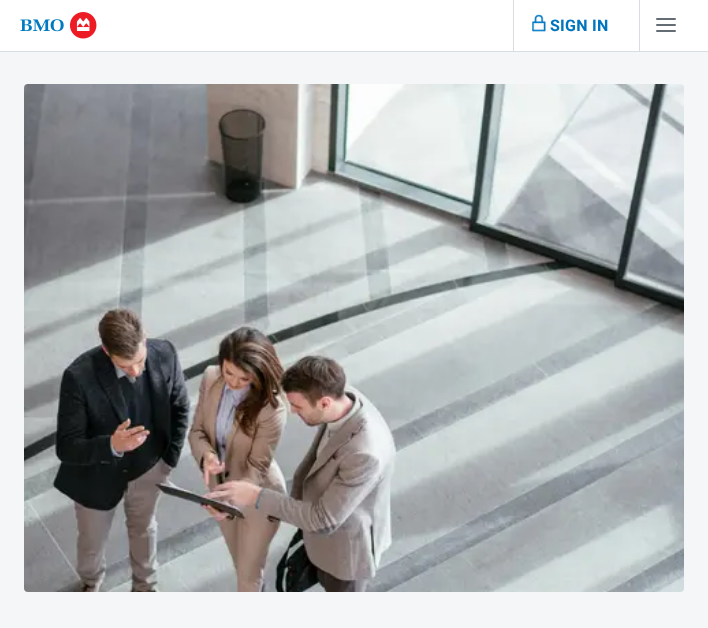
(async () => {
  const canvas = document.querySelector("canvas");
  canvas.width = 708;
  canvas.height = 628;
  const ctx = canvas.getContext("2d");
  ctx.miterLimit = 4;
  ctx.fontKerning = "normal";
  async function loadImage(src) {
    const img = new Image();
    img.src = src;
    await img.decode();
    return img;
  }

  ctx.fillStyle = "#ffffff";
  ctx.fillRect(0, 0, 708, 628);
  ctx.fillStyle = "#d9dce1";
  ctx.fillRect(0, 51, 708, 1);
  ctx.drawImage(await loadImage("img/1.png"), 20, 12, 77, 27);
  ctx.fillRect(513, 0, 1, 51);
  ctx.drawImage(await loadImage("img/2.png"), 532, 14, 14, 18);
  ctx.fillRect(639, 0, 1, 51);
  ctx.fillStyle = "#646c76";
  ctx.beginPath();
  ctx.roundRect(656, 18, 20, 2, 1);
  ctx.fill();
  ctx.beginPath();
  ctx.roundRect(656, 24, 20, 2, 1);
  ctx.fill();
  ctx.beginPath();
  ctx.roundRect(656, 30, 20, 2, 1);
  ctx.fill();
  ctx.fillStyle = "#f5f6f7";
  ctx.fillRect(0, 52, 708, 576);
  ctx.drawImage(await loadImage("img/3.png"), 24, 84, 660, 508);
  ctx.letterSpacing = "0.25px";
  ctx.font = "bold 16px Heebo";
  ctx.fillStyle = "#0075be";
  ctx.fillText("SIGN IN", 550, 31);
})();
